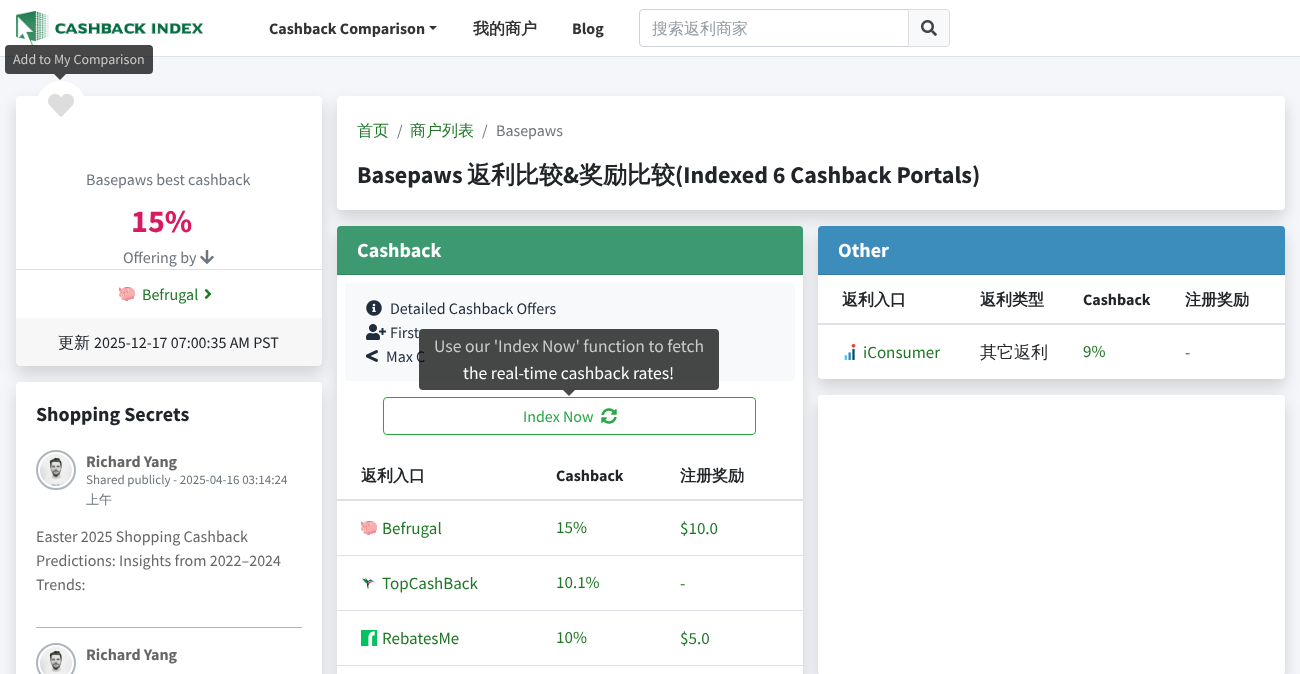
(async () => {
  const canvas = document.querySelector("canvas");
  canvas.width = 1300;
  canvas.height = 674;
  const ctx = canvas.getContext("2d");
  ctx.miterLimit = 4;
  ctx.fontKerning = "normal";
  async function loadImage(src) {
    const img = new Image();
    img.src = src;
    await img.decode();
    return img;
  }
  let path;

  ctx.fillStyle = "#ffffff";
  ctx.fillRect(0, 0, 1300, 674);
  ctx.fillStyle = "#dee2e6";
  ctx.fillRect(0, 56, 1300, 1);
  ctx.drawImage(await loadImage("img/1.png"), 16, 11, 187, 35);
  ctx.fillStyle = "#333333";
  path = new Path2D("M429 26H437L433 30Z");
  ctx.fill(path);
  ctx.beginPath();
  ctx.roundRect(639.5, 9.5, 269, 37, [3.5, 0, 0, 3.5]);
  ctx.strokeStyle = "#ced4da";
  ctx.stroke();
  ctx.fillStyle = "#f8f9fa";
  ctx.beginPath();
  ctx.roundRect(908.5, 9.5, 41, 37, [0, 3.5, 3.5, 0]);
  ctx.fill();
  ctx.strokeStyle = "#dddddd";
  ctx.stroke();
  ctx.drawImage(await loadImage("img/2.png"), 921, 20, 16, 16);
  ctx.fillStyle = "#f4f6f9";
  ctx.fillRect(0, 57, 1300, 617);
  ctx.fillStyle = "rgba(0, 0, 0, 0.15)";
  ctx.filter = "blur(8px)";
  ctx.beginPath();
  ctx.roundRect(16, 104, 306, 270, 4);
  ctx.fill();
  ctx.filter = "none";
  ctx.fillStyle = "#ffffff";
  ctx.beginPath();
  ctx.roundRect(16, 96, 306, 270, 4);
  ctx.fill();
  ctx.beginPath();
  ctx.arc(61, 106, 25, 0, Math.PI * 2);
  ctx.fill();
  ctx.drawImage(await loadImage("img/3.png"), 48, 94, 26, 23);
  ctx.fillStyle = "#dfdfdf";
  ctx.fillRect(16, 269, 306, 1);
  ctx.drawImage(await loadImage("img/4.png"), 200, 250, 14, 14);
  ctx.drawImage(await loadImage("img/5.png"), 119, 287, 16, 14);
  ctx.drawImage(await loadImage("img/6.png"), 204, 289, 8, 10);
  ctx.fillStyle = "rgba(0, 0, 0, 0.03)";
  ctx.fillRect(16, 318, 306, 48);
  ctx.fillStyle = "rgba(0, 0, 0, 0.15)";
  ctx.filter = "blur(8px)";
  ctx.beginPath();
  ctx.roundRect(16, 390, 306, 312, 4);
  ctx.fill();
  ctx.filter = "none";
  ctx.fillStyle = "#ffffff";
  ctx.beginPath();
  ctx.roundRect(16, 382, 306, 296, 4);
  ctx.fill();
  ctx.fillStyle = "#adb5bd";
  ctx.fillRect(36, 627, 266, 1);
  ctx.beginPath();
  ctx.arc(56, 470, 19, 0, Math.PI * 2);
  ctx.strokeStyle = "#adb5bd";
  ctx.lineWidth = 2;
  ctx.stroke();
  ctx.drawImage(await loadImage("img/7.png"), 40, 454, 32, 32);
  ctx.beginPath();
  ctx.arc(56, 663, 19, 0, Math.PI * 2);
  ctx.stroke();
  ctx.drawImage(await loadImage("img/8.png"), 40, 647, 32, 27);
  ctx.fillStyle = "rgba(0, 0, 0, 0.15)";
  ctx.filter = "blur(8px)";
  ctx.beginPath();
  ctx.roundRect(337, 104, 948, 114, 4);
  ctx.fill();
  ctx.filter = "none";
  ctx.fillStyle = "#ffffff";
  ctx.beginPath();
  ctx.roundRect(337, 96, 948, 114, 4);
  ctx.fill();
  ctx.fillStyle = "rgba(0, 0, 0, 0.15)";
  ctx.filter = "blur(8px)";
  ctx.beginPath();
  ctx.roundRect(337, 234, 466, 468, 4);
  ctx.fill();
  ctx.filter = "none";
  ctx.fillStyle = "#ffffff";
  ctx.beginPath();
  ctx.roundRect(337, 226, 466, 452, 4);
  ctx.fill();
  ctx.fillStyle = "#3d9970";
  ctx.beginPath();
  ctx.roundRect(337, 226, 466, 49, [4, 4, 0, 0]);
  ctx.fill();
  ctx.fillStyle = "#358662";
  ctx.fillRect(337, 274, 466, 1);
  ctx.fillStyle = "#f8f9fa";
  ctx.beginPath();
  ctx.roundRect(345, 283, 450, 98, 4);
  ctx.fill();
  ctx.drawImage(await loadImage("img/9.png"), 366, 300, 16, 16);
  ctx.drawImage(await loadImage("img/10.png"), 366, 324, 20, 16);
  ctx.drawImage(await loadImage("img/11.png"), 366, 350, 12, 12);
  ctx.beginPath();
  ctx.roundRect(383.5, 397.5, 372, 37, 3.5);
  ctx.strokeStyle = "#28a745";
  ctx.lineWidth = 1;
  ctx.stroke();
  ctx.drawImage(await loadImage("img/12.png"), 601, 408, 16, 16);
  ctx.fillStyle = "#dee2e6";
  ctx.fillRect(336, 499, 468, 2);
  ctx.drawImage(await loadImage("img/5.png"), 361, 521, 16, 14);
  ctx.drawImage(await loadImage("img/13.png"), 362, 577, 14, 12);
  ctx.fillRect(336, 555, 468, 1);
  ctx.drawImage(await loadImage("img/14.png"), 361, 630, 16, 16);
  ctx.fillRect(336, 610, 468, 1);
  ctx.fillRect(336, 665, 468, 1);
  ctx.fillStyle = "rgba(0, 0, 0, 0.15)";
  ctx.filter = "blur(8px)";
  ctx.beginPath();
  ctx.roundRect(818, 234, 467, 153, 4);
  ctx.fill();
  ctx.filter = "none";
  ctx.fillStyle = "#ffffff";
  ctx.beginPath();
  ctx.roundRect(818, 226, 467, 153, 4);
  ctx.fill();
  ctx.fillStyle = "#3c8dbc";
  ctx.beginPath();
  ctx.roundRect(818, 226, 467, 49, [4, 4, 0, 0]);
  ctx.fill();
  ctx.fillStyle = "#357ba5";
  ctx.fillRect(818, 274, 467, 1);
  ctx.fillStyle = "#dee2e6";
  ctx.fillRect(817, 323, 469, 2);
  ctx.drawImage(await loadImage("img/15.png"), 844, 344, 12, 16);
  ctx.fillStyle = "rgba(0, 0, 0, 0.15)";
  ctx.filter = "blur(8px)";
  ctx.beginPath();
  ctx.roundRect(818, 403, 467, 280, 4);
  ctx.fill();
  ctx.filter = "none";
  ctx.fillStyle = "#ffffff";
  ctx.beginPath();
  ctx.roundRect(818, 395, 467, 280, 4);
  ctx.fill();
  ctx.fillStyle = "rgba(0, 0, 0, 0.72)";
  ctx.beginPath();
  ctx.roundRect(5, 45, 148, 29, 4);
  ctx.fill();
  ctx.fillStyle = "#444546";
  path = new Path2D("M54 74H66L60 80Z");
  ctx.fill(path);
  ctx.fillStyle = "#474747";
  path = new Path2D("M563 390H575L569 396Z");
  ctx.fill(path);
  ctx.font = "bold 16px Source Sans Pro";
  ctx.fillStyle = "#333333";
  ctx.fillText("Cashback Comparison", 269, 34);
  ctx.font = "bold 16px WenQuanYi Zen Hei";
  ctx.fillText("我的商户", 473, 34);
  ctx.font = "bold 16px Source Sans Pro";
  ctx.fillText("Blog", 572, 34);
  ctx.font = "500 16px WenQuanYi Zen Hei";
  ctx.fillStyle = "#939ba2";
  ctx.fillText("搜索返利商家", 652, 34);
  ctx.font = "16px Source Sans Pro";
  ctx.fillStyle = "#6c757d";
  ctx.fillText("Basepaws best cashback", 86, 185);
  ctx.font = "bold 32px Source Sans Pro";
  ctx.fillStyle = "#d81b60";
  ctx.fillText("15%", 131, 232);
  ctx.font = "16px Source Sans Pro";
  ctx.fillStyle = "#6c757d";
  ctx.fillText("Offering by", 123, 263);
  ctx.fillStyle = "#1e7725";
  ctx.fillText("Befrugal", 142, 300);
  ctx.font = "500 16px WenQuanYi Zen Hei";
  ctx.fillStyle = "#212529";
  ctx.fillText("更新", 58, 348);
  ctx.font = "16px Source Sans Pro";
  ctx.fillText("2025-12-17 07:00:35 AM PST", 94, 348);
  ctx.font = "bold 20px Source Sans Pro";
  ctx.fillText("Shopping Secrets", 36, 421);
  ctx.font = "bold 16px Source Sans Pro";
  ctx.fillStyle = "#666666";
  ctx.fillText("Richard Yang", 86, 467);
  ctx.font = "13px Source Sans Pro";
  ctx.fillStyle = "#6c757d";
  ctx.fillText("Shared publicly - 2025-04-16 03:14:24", 86, 484);
  ctx.font = "500 13px WenQuanYi Zen Hei";
  ctx.fillText("上午", 86, 504);
  ctx.font = "16px Source Sans Pro";
  ctx.fillStyle = "#666666";
  for (const [text, x, y] of [
    ["Easter 2025 Shopping Cashback", 36, 542],
    ["Predictions: Insights from 2022–2024", 36, 566],
    ["Trends:", 36, 590],
  ]) {
    ctx.fillText(text, x, y);
  }
  ctx.font = "bold 16px Source Sans Pro";
  ctx.fillText("Richard Yang", 86, 660);
  ctx.font = "500 16px WenQuanYi Zen Hei";
  ctx.fillStyle = "#1e7725";
  ctx.fillText("首页", 357, 136);
  ctx.font = "16px Source Sans Pro";
  ctx.fillStyle = "#6c757d";
  ctx.fillText("/", 397, 136);
  ctx.font = "500 16px WenQuanYi Zen Hei";
  ctx.fillStyle = "#1e7725";
  ctx.fillText("商户列表", 410, 136);
  ctx.font = "16px Source Sans Pro";
  ctx.fillStyle = "#6c757d";
  ctx.fillText("/", 482, 136);
  ctx.fillText("Basepaws", 496, 136);
  ctx.font = "bold 24px Source Sans Pro";
  ctx.fillStyle = "#212529";
  ctx.fillText("Basepaws", 357, 183);
  ctx.font = "bold 24px WenQuanYi Zen Hei";
  ctx.fillText("返利比较", 467, 183);
  ctx.font = "bold 24px Source Sans Pro";
  ctx.fillText("&", 563, 183);
  ctx.font = "bold 24px WenQuanYi Zen Hei";
  ctx.fillText("奖励比较", 579, 183);
  ctx.font = "bold 24px Source Sans Pro";
  ctx.fillText("(Indexed 6 Cashback Portals)", 675, 183);
  ctx.font = "bold 20px Source Sans Pro";
  ctx.fillStyle = "#ffffff";
  ctx.fillText("Cashback", 357, 257);
  ctx.font = "16px Source Sans Pro";
  ctx.fillStyle = "#1f2d3d";
  for (const [text, x, y] of [
    ["Detailed Cashback Offers", 390, 314],
    ["First", 390, 338],
    ["Max C", 386, 362],
  ]) {
    ctx.fillText(text, x, y);
  }
  ctx.fillStyle = "#28a745";
  ctx.fillText("Index Now", 523, 422);
  ctx.font = "bold 16px WenQuanYi Zen Hei";
  ctx.fillStyle = "#212529";
  ctx.fillText("返利入口", 361, 481);
  ctx.font = "bold 16px Source Sans Pro";
  ctx.fillText("Cashback", 556, 481);
  ctx.font = "bold 16px WenQuanYi Zen Hei";
  ctx.fillText("注册奖励", 680, 481);
  ctx.font = "17px Source Sans Pro";
  ctx.fillStyle = "#1e7725";
  for (const [text, x, y] of [
    ["Befrugal", 382, 534],
    ["15%", 556, 533],
    ["$10.0", 680, 534],
    ["TopCashBack", 382, 589],
    ["10.1%", 556, 588],
    ["-", 680, 589],
    ["RebatesMe", 382, 644],
    ["10%", 556, 643],
    ["$5.0", 680, 644],
  ]) {
    ctx.fillText(text, x, y);
  }
  ctx.font = "bold 20px Source Sans Pro";
  ctx.fillStyle = "#ffffff";
  ctx.fillText("Other", 838, 257);
  ctx.font = "bold 16px WenQuanYi Zen Hei";
  ctx.fillStyle = "#212529";
  ctx.fillText("返利入口", 842, 305);
  ctx.fillText("返利类型", 980, 305);
  ctx.font = "bold 16px Source Sans Pro";
  ctx.fillText("Cashback", 1083, 305);
  ctx.font = "bold 16px WenQuanYi Zen Hei";
  ctx.fillText("注册奖励", 1185, 305);
  ctx.font = "17px Source Sans Pro";
  ctx.fillStyle = "#1e7725";
  ctx.fillText("iConsumer", 863, 358);
  ctx.font = "500 17px WenQuanYi Zen Hei";
  ctx.fillStyle = "#212529";
  ctx.fillText("其它返利", 980, 358);
  ctx.font = "17px Source Sans Pro";
  ctx.fillStyle = "#1e7725";
  ctx.fillText("9%", 1083, 357);
  ctx.fillText("-", 1185, 358);
  ctx.font = "14px Source Sans Pro";
  ctx.fillStyle = "#cbcbcb";
  ctx.fillText("Add to My Comparison", 13, 64);
  ctx.fillStyle = "rgba(0, 0, 0, 0.72)";
  ctx.beginPath();
  ctx.roundRect(419, 329, 300, 61, 4);
  ctx.fill();
  ctx.font = "17.6px Source Sans Pro";
  ctx.fillStyle = "#cbcbcb";
  ctx.fillText("Use our 'Index Now' function to fetch", 434, 352);
  ctx.fillStyle = "#ffffff";
  ctx.fillText("the real-time cashback rates!", 463, 379);
})();
